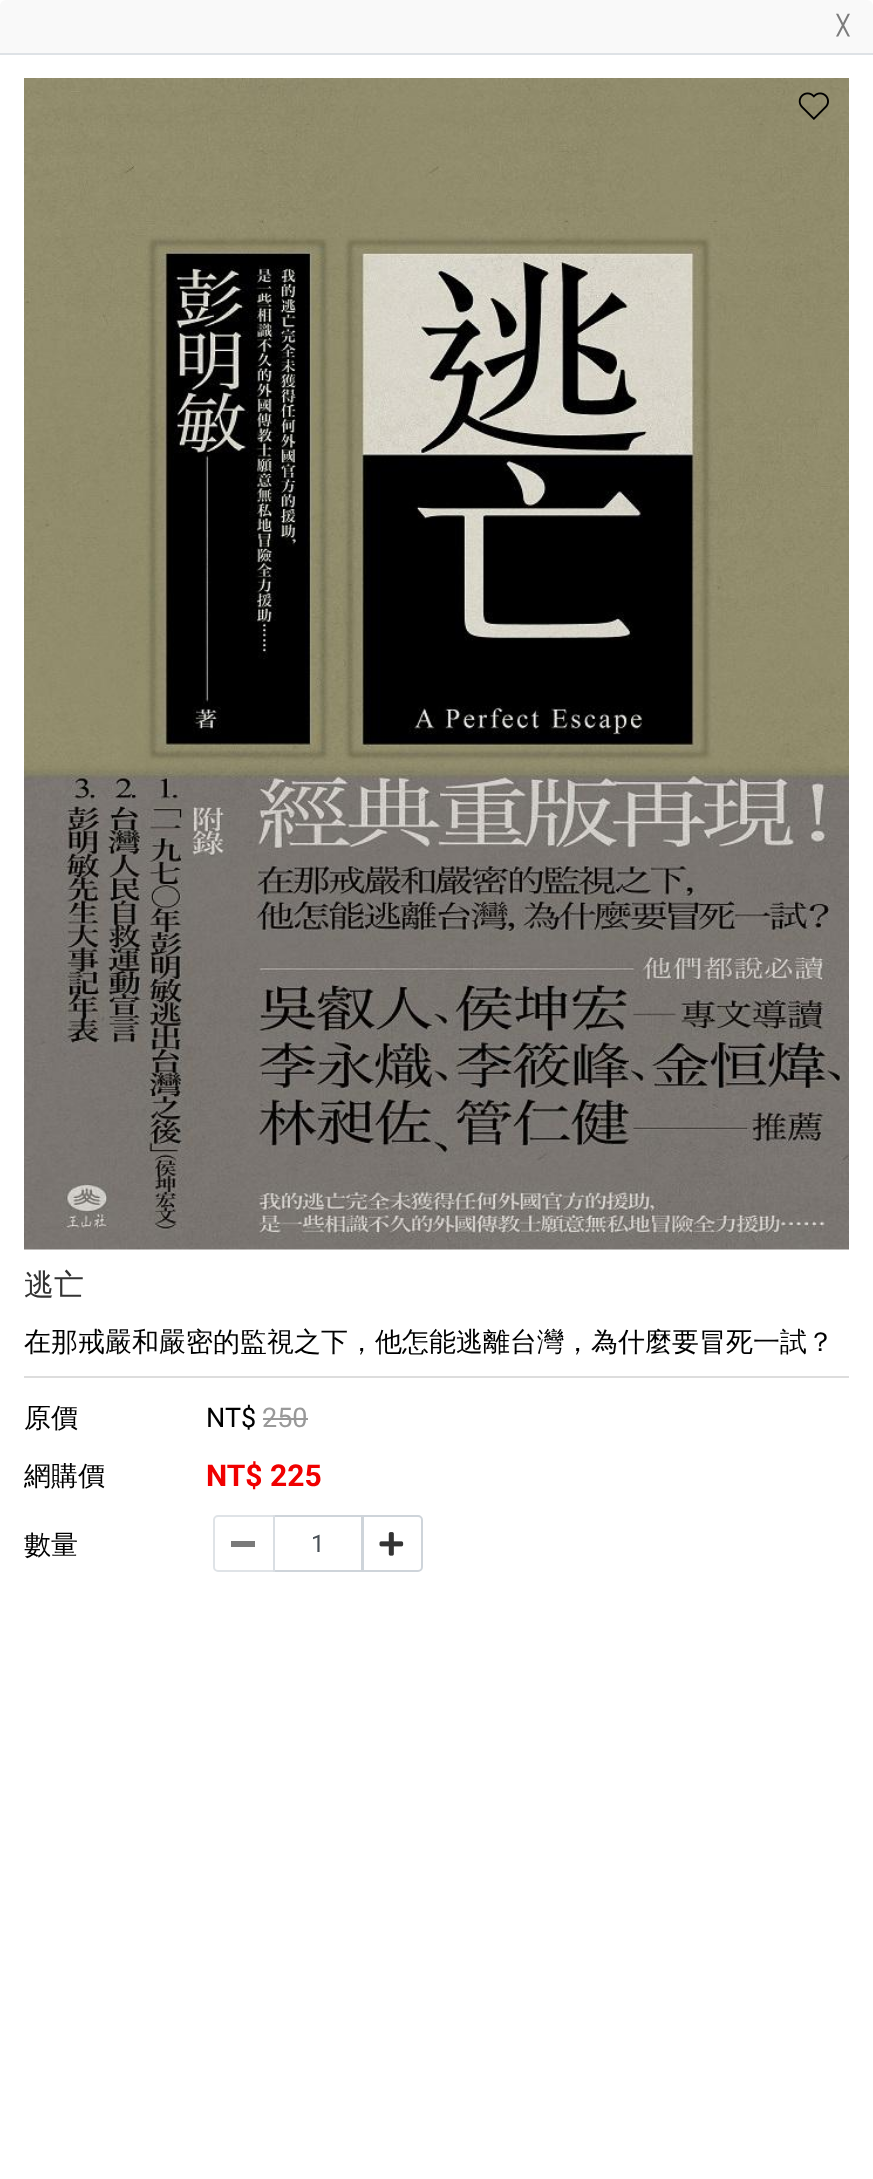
(async () => {
  const canvas = document.querySelector("canvas");
  canvas.width = 873;
  canvas.height = 2179;
  const ctx = canvas.getContext("2d");
  ctx.miterLimit = 4;
  ctx.fontKerning = "normal";
  async function loadImage(src) {
    const img = new Image();
    img.src = src;
    await img.decode();
    return img;
  }

  ctx.fillStyle = "#ffffff";
  ctx.fillRect(0, 0, 873, 2179);
  ctx.fillStyle = "#f9f9f9";
  ctx.beginPath();
  ctx.roundRect(0, 0, 873, 53, [6, 6, 0, 0]);
  ctx.fill();
  ctx.fillStyle = "#dee2e6";
  ctx.fillRect(0, 53, 873, 2);
  ctx.drawImage(await loadImage("img/1.png"), 24, 78, 825, 1172);
  ctx.drawImage(await loadImage("img/2.png"), 798, 92, 31, 28);
  ctx.fillStyle = "#dddddd";
  ctx.fillRect(24, 1376, 825, 2);
  ctx.fillStyle = "#999999";
  ctx.fillRect(263, 1418, 45, 2);
  ctx.strokeStyle = "#ced4da";
  ctx.lineWidth = 2;
  ctx.strokeRect(274, 1516, 88, 55);
  ctx.fillStyle = "rgba(255, 255, 255, 0.65)";
  ctx.beginPath();
  ctx.roundRect(213, 1515, 62, 57, [5, 0, 0, 5]);
  ctx.fill();
  ctx.beginPath();
  ctx.roundRect(214, 1516, 60, 55, [4, 0, 0, 4]);
  ctx.strokeStyle = "rgba(206, 212, 218, 0.65)";
  ctx.stroke();
  ctx.fillStyle = "#7a7a7a";
  ctx.fillRect(231, 1541, 24, 6);
  ctx.fillStyle = "#ffffff";
  ctx.beginPath();
  ctx.roundRect(363, 1516, 59, 55, [0, 4, 4, 0]);
  ctx.fill();
  ctx.strokeStyle = "#ced4da";
  ctx.stroke();
  ctx.drawImage(await loadImage("img/3.png"), 379, 1532, 25, 24);
  ctx.font = "bold 19px DejaVu Sans";
  ctx.fillStyle = "#7d7d7d";
  ctx.fillText("╳", 837, 32);
  ctx.font = "500 30px WenQuanYi Zen Hei";
  ctx.fillStyle = "#333333";
  ctx.fillText("逃亡", 24, 1295);
  ctx.font = "500 27px WenQuanYi Zen Hei";
  ctx.fillStyle = "#000000";
  ctx.fillText("在那戒嚴和嚴密的監視之下，他怎能逃離台灣，為什麼要冒死一試？", 24, 1351);
  ctx.fillText("原價", 24, 1427);
  ctx.font = "27px Roboto";
  ctx.fillText("NT$", 206, 1427);
  ctx.fillStyle = "#999999";
  ctx.fillText("250", 262, 1427);
  ctx.font = "500 27px WenQuanYi Zen Hei";
  ctx.fillStyle = "#000000";
  ctx.fillText("網購價", 24, 1485);
  ctx.font = "bold 30px Roboto";
  ctx.fillStyle = "#f00000";
  ctx.fillText("NT$ 225", 206, 1486);
  ctx.font = "500 27px WenQuanYi Zen Hei";
  ctx.fillStyle = "#000000";
  ctx.fillText("數量", 24, 1554);
  ctx.font = "24px Roboto";
  ctx.fillStyle = "#495057";
  ctx.fillText("1", 311, 1552);
})();
